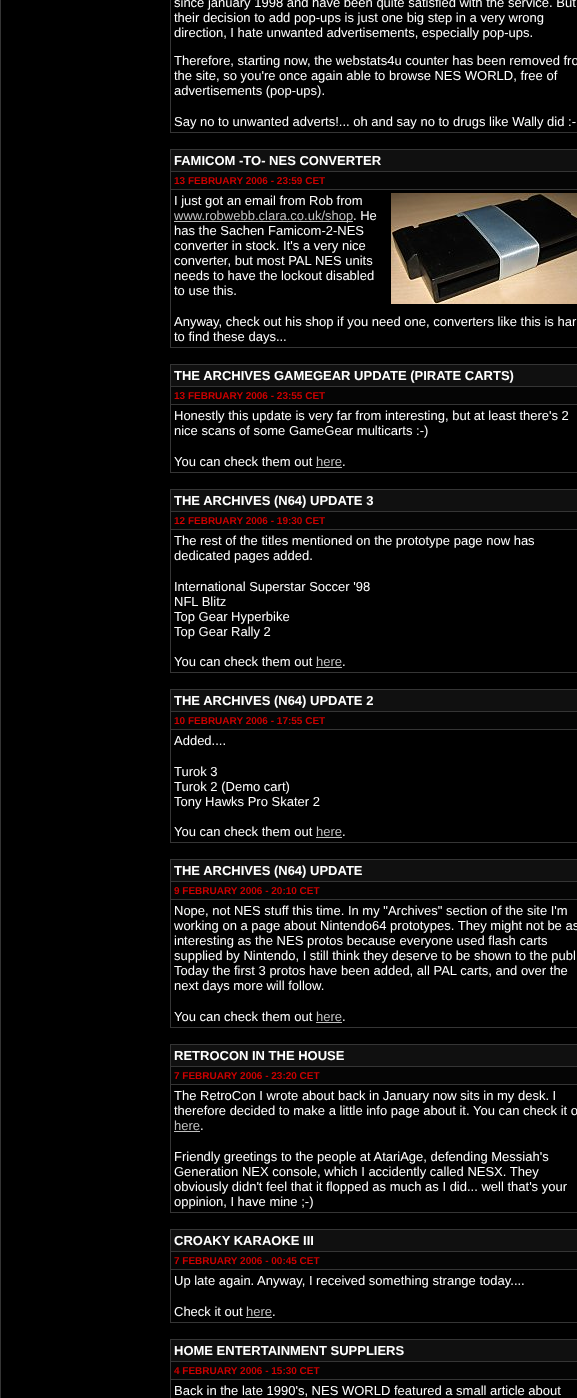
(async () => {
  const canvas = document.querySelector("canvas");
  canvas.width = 577;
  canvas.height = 1398;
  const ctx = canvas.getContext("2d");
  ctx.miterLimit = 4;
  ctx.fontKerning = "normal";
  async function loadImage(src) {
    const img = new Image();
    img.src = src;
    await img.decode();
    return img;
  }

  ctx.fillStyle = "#353535";
  ctx.fillRect(0, 0, 577, 1398);
  for (const [x, y, w, h, color] of [
    [1, 0, 576, 1398, "#000000"],
    [170, 0, 407, 133, "#353535"],
    [171, 0, 406, 132, "#000000"],
    [170, 149, 407, 199, "#353535"],
    [171, 150, 406, 21, "#101010"],
    [171, 172, 406, 17, "#050505"],
    [171, 190, 406, 157, "#000000"],
  ]) {
    ctx.fillStyle = color;
    ctx.fillRect(x, y, w, h);
  }
  ctx.drawImage(await loadImage("img/1.png"), 391, 193, 186, 111);
  for (const [x, y, w, h, color] of [
    [174, 221, 179, 1, "#c0c0c0"],
    [170, 364, 407, 109, "#353535"],
    [171, 365, 406, 21, "#101010"],
    [171, 387, 406, 17, "#050505"],
    [171, 405, 406, 67, "#000000"],
    [316, 467, 26, 1, "#c0c0c0"],
    [170, 489, 407, 184, "#353535"],
    [171, 490, 406, 21, "#101010"],
    [171, 512, 406, 17, "#050505"],
    [171, 530, 406, 142, "#000000"],
    [316, 667, 26, 1, "#c0c0c0"],
    [170, 689, 407, 154, "#353535"],
    [171, 690, 406, 21, "#101010"],
    [171, 712, 406, 17, "#050505"],
    [171, 730, 406, 112, "#000000"],
    [316, 837, 26, 1, "#c0c0c0"],
    [170, 859, 407, 169, "#353535"],
    [171, 860, 406, 21, "#101010"],
    [171, 882, 406, 17, "#050505"],
    [171, 900, 406, 127, "#000000"],
    [316, 1022, 26, 1, "#c0c0c0"],
    [170, 1044, 407, 169, "#353535"],
    [171, 1045, 406, 21, "#101010"],
    [171, 1067, 406, 17, "#050505"],
    [171, 1085, 406, 127, "#000000"],
    [174, 1131, 26, 1, "#c0c0c0"],
    [170, 1229, 407, 94, "#353535"],
    [171, 1230, 406, 21, "#101010"],
    [171, 1252, 406, 17, "#050505"],
    [171, 1270, 406, 52, "#000000"],
    [246, 1317, 26, 1, "#c0c0c0"],
    [170, 1339, 407, 59, "#353535"],
    [171, 1340, 406, 21, "#101010"],
    [171, 1362, 406, 17, "#050505"],
    [171, 1380, 406, 18, "#000000"],
  ]) {
    ctx.fillStyle = color;
    ctx.fillRect(x, y, w, h);
  }
  ctx.font = "13px Liberation Sans";
  ctx.fillStyle = "#ffffff";
  for (const [text, x, y] of [
    ["since january 1998 and have been quite satisfied with the service. But", 174, 7],
    ["their decision to add pop-ups is just one big step in a very wrong", 174, 22],
    ["direction, I hate unwanted advertisements, especially pop-ups.", 174, 37],
    ["Therefore, starting now, the webstats4u counter has been removed fro", 174, 65],
    ["the site, so you're once again able to browse NES WORLD, free of", 174, 80],
    ["advertisements (pop-ups).", 174, 95],
    ["Say no to unwanted adverts!... oh and say no to drugs like Wally did :-", 174, 126],
  ]) {
    ctx.fillText(text, x, y);
  }
  ctx.font = "bold 13px Liberation Sans";
  ctx.fillText("FAMICOM -TO- NES CONVERTER", 174, 165);
  ctx.font = "bold 10px Liberation Sans";
  ctx.fillStyle = "#cc0000";
  ctx.fillText("13 FEBRUARY 2006 - 23:59 CET", 174, 184);
  ctx.font = "13px Liberation Sans";
  ctx.fillStyle = "#ffffff";
  ctx.fillText("I just got an email from Rob from", 174, 205);
  ctx.fillStyle = "#c0c0c0";
  ctx.fillText("www.robwebb.clara.co.uk/shop", 174, 220);
  ctx.fillStyle = "#ffffff";
  for (const [text, x, y] of [
    [". He", 353, 220],
    ["has the Sachen Famicom-2-NES", 174, 235],
    ["converter in stock. It's a very nice", 174, 250],
    ["converter, but most PAL NES units", 174, 265],
    ["needs to have the lockout disabled", 174, 280],
    ["to use this.", 174, 295],
    ["Anyway, check out his shop if you need one, converters like this is har", 174, 326],
    ["to find these days...", 174, 341],
  ]) {
    ctx.fillText(text, x, y);
  }
  ctx.font = "bold 13px Liberation Sans";
  ctx.fillText("THE ARCHIVES GAMEGEAR UPDATE (PIRATE CARTS)", 174, 380);
  ctx.font = "bold 10px Liberation Sans";
  ctx.fillStyle = "#cc0000";
  ctx.fillText("13 FEBRUARY 2006 - 23:55 CET", 174, 399);
  ctx.font = "13px Liberation Sans";
  ctx.fillStyle = "#ffffff";
  for (const [text, x, y] of [
    ["Honestly this update is very far from interesting, but at least there's 2", 174, 420],
    ["nice scans of some GameGear multicarts :-)", 174, 435],
    ["You can check them out", 174, 466],
  ]) {
    ctx.fillText(text, x, y);
  }
  ctx.fillStyle = "#c0c0c0";
  ctx.fillText("here", 316, 466);
  ctx.fillStyle = "#ffffff";
  ctx.fillText(".", 342, 466);
  ctx.font = "bold 13px Liberation Sans";
  ctx.fillText("THE ARCHIVES (N64) UPDATE 3", 174, 505);
  ctx.font = "bold 10px Liberation Sans";
  ctx.fillStyle = "#cc0000";
  ctx.fillText("12 FEBRUARY 2006 - 19:30 CET", 174, 524);
  ctx.font = "13px Liberation Sans";
  ctx.fillStyle = "#ffffff";
  for (const [text, x, y] of [
    ["The rest of the titles mentioned on the prototype page now has", 174, 545],
    ["dedicated pages added.", 174, 560],
    ["International Superstar Soccer '98", 174, 591],
    ["NFL Blitz", 174, 606],
    ["Top Gear Hyperbike", 174, 621],
    ["Top Gear Rally 2", 174, 636],
    ["You can check them out", 174, 666],
  ]) {
    ctx.fillText(text, x, y);
  }
  ctx.fillStyle = "#c0c0c0";
  ctx.fillText("here", 316, 666);
  ctx.fillStyle = "#ffffff";
  ctx.fillText(".", 342, 666);
  ctx.font = "bold 13px Liberation Sans";
  ctx.fillText("THE ARCHIVES (N64) UPDATE 2", 174, 705);
  ctx.font = "bold 10px Liberation Sans";
  ctx.fillStyle = "#cc0000";
  ctx.fillText("10 FEBRUARY 2006 - 17:55 CET", 174, 724);
  ctx.font = "13px Liberation Sans";
  ctx.fillStyle = "#ffffff";
  for (const [text, x, y] of [
    ["Added....", 174, 745],
    ["Turok 3", 174, 776],
    ["Turok 2 (Demo cart)", 174, 791],
    ["Tony Hawks Pro Skater 2", 174, 806],
    ["You can check them out", 174, 836],
  ]) {
    ctx.fillText(text, x, y);
  }
  ctx.fillStyle = "#c0c0c0";
  ctx.fillText("here", 316, 836);
  ctx.fillStyle = "#ffffff";
  ctx.fillText(".", 342, 836);
  ctx.font = "bold 13px Liberation Sans";
  ctx.fillText("THE ARCHIVES (N64) UPDATE", 174, 875);
  ctx.font = "bold 10px Liberation Sans";
  ctx.fillStyle = "#cc0000";
  ctx.fillText("9 FEBRUARY 2006 - 20:10 CET", 174, 894);
  ctx.font = "13px Liberation Sans";
  ctx.fillStyle = "#ffffff";
  for (const [text, x, y] of [
    ["Nope, not NES stuff this time. In my \"Archives\" section of the site I'm", 174, 915],
    ["working on a page about Nintendo64 prototypes. They might not be as", 174, 930],
    ["interesting as the NES protos because everyone used flash carts", 174, 945],
    ["supplied by Nintendo, I still think they deserve to be shown to the publ", 174, 960],
    ["Today the first 3 protos have been added, all PAL carts, and over the", 174, 975],
    ["next days more will follow.", 174, 990],
    ["You can check them out", 174, 1021],
  ]) {
    ctx.fillText(text, x, y);
  }
  ctx.fillStyle = "#c0c0c0";
  ctx.fillText("here", 316, 1021);
  ctx.fillStyle = "#ffffff";
  ctx.fillText(".", 342, 1021);
  ctx.font = "bold 13px Liberation Sans";
  ctx.fillText("RETROCON IN THE HOUSE", 174, 1060);
  ctx.font = "bold 10px Liberation Sans";
  ctx.fillStyle = "#cc0000";
  ctx.fillText("7 FEBRUARY 2006 - 23:20 CET", 174, 1079);
  ctx.font = "13px Liberation Sans";
  ctx.fillStyle = "#ffffff";
  ctx.fillText("The RetroCon I wrote about back in January now sits in my desk. I", 174, 1100);
  ctx.fillText("therefore decided to make a little info page about it. You can check it o", 174, 1115);
  ctx.fillStyle = "#c0c0c0";
  ctx.fillText("here", 174, 1130);
  ctx.fillStyle = "#ffffff";
  for (const [text, x, y] of [
    [".", 200, 1130],
    ["Friendly greetings to the people at AtariAge, defending Messiah's", 174, 1161],
    ["Generation NEX console, which I accidently called NESX. They", 174, 1176],
    ["obviously didn't feel that it flopped as much as I did... well that's your", 174, 1191],
    ["oppinion, I have mine ;-)", 174, 1206],
  ]) {
    ctx.fillText(text, x, y);
  }
  ctx.font = "bold 13px Liberation Sans";
  ctx.fillText("CROAKY KARAOKE III", 174, 1245);
  ctx.font = "bold 10px Liberation Sans";
  ctx.fillStyle = "#cc0000";
  ctx.fillText("7 FEBRUARY 2006 - 00:45 CET", 174, 1264);
  ctx.font = "13px Liberation Sans";
  ctx.fillStyle = "#ffffff";
  ctx.fillText("Up late again. Anyway, I received something strange today....", 174, 1285);
  ctx.fillText("Check it out", 174, 1316);
  ctx.fillStyle = "#c0c0c0";
  ctx.fillText("here", 246, 1316);
  ctx.fillStyle = "#ffffff";
  ctx.fillText(".", 272, 1316);
  ctx.font = "bold 13px Liberation Sans";
  ctx.fillText("HOME ENTERTAINMENT SUPPLIERS", 174, 1355);
  ctx.font = "bold 10px Liberation Sans";
  ctx.fillStyle = "#cc0000";
  ctx.fillText("4 FEBRUARY 2006 - 15:30 CET", 174, 1374);
  ctx.font = "13px Liberation Sans";
  ctx.fillStyle = "#ffffff";
  ctx.fillText("Back in the late 1990's, NES WORLD featured a small article about", 174, 1395);
})();
